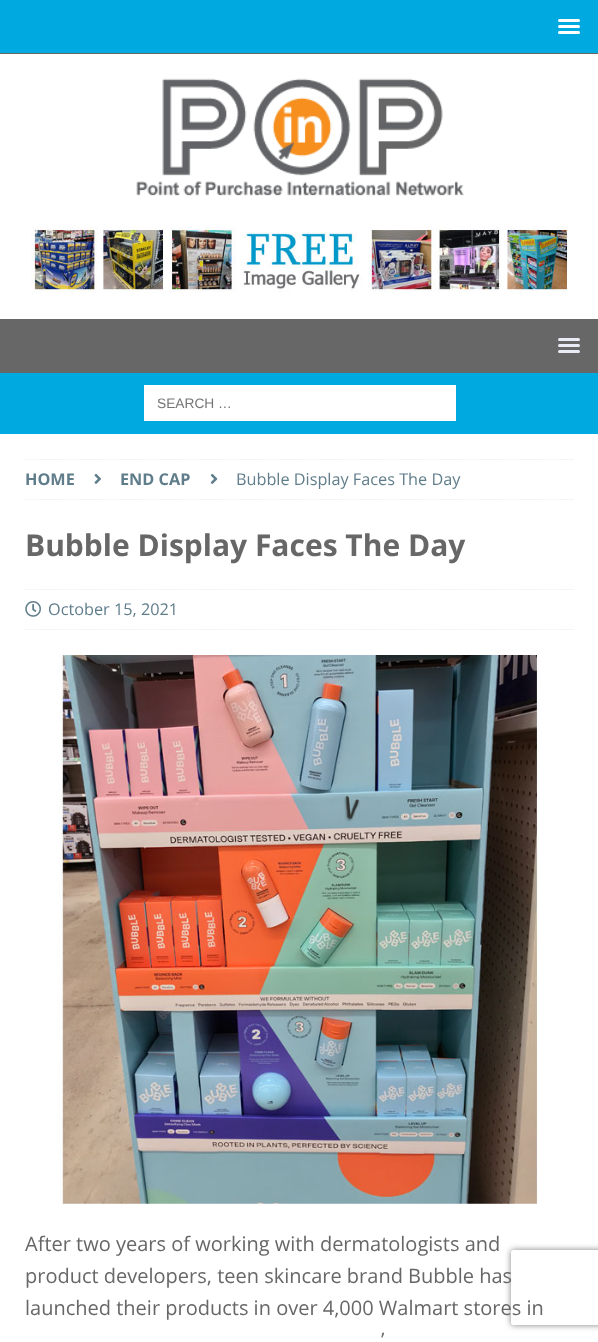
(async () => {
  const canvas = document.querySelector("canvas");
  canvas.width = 598;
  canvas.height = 1342;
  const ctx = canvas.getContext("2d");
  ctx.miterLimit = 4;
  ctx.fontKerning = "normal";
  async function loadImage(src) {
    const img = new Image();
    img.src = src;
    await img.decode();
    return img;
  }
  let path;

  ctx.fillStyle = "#00aae1";
  ctx.fillRect(0, 0, 598, 1342);
  ctx.fillStyle = "#676767";
  ctx.fillRect(0, 53, 598, 1);
  ctx.fillStyle = "#ffffff";
  ctx.beginPath();
  ctx.roundRect(558, 19, 22, 3, 1.5);
  ctx.fill();
  ctx.beginPath();
  ctx.roundRect(558, 25, 22, 3, 1.5);
  ctx.fill();
  ctx.beginPath();
  ctx.roundRect(558, 31, 22, 3, 1.5);
  ctx.fill();
  ctx.fillRect(0, 54, 598, 265);
  ctx.drawImage(await loadImage("img/1.png"), 136, 78, 328, 118);
  ctx.drawImage(await loadImage("img/2.png"), 31, 226, 537, 67);
  ctx.fillStyle = "#676767";
  ctx.fillRect(0, 319, 598, 54);
  ctx.fillStyle = "#e9ecf6";
  ctx.beginPath();
  ctx.roundRect(558, 338, 22, 3, 1.5);
  ctx.fill();
  ctx.beginPath();
  ctx.roundRect(558, 344, 22, 3, 1.5);
  ctx.fill();
  ctx.beginPath();
  ctx.roundRect(558, 350, 22, 3, 1.5);
  ctx.fill();
  ctx.fillStyle = "#ffffff";
  ctx.fillRect(144, 385, 312, 36);
  ctx.fillRect(0, 434, 598, 908);
  ctx.save();
  ctx.beginPath();
  ctx.rect(25, 459, 549, 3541);
  ctx.clip();
  path = new Path2D("M25 459.5H574");
  ctx.strokeStyle = "#ebebeb";
  ctx.lineWidth = 1.2;
  ctx.setLineDash([1.25, 1.25]);
  ctx.stroke(path);
  ctx.restore();
  path = new Path2D("M25 499.5H574");
  ctx.strokeStyle = "#ebebeb";
  ctx.lineWidth = 1.2;
  ctx.setLineDash([1.25, 1.25]);
  ctx.stroke(path);
  ctx.drawImage(await loadImage("img/3.png"), 94, 473, 7, 11);
  ctx.drawImage(await loadImage("img/4.png"), 210, 473, 8, 11);
  path = new Path2D("M25 589.5H574");
  ctx.stroke(path);
  path = new Path2D("M25 629.5H574");
  ctx.stroke(path);
  ctx.drawImage(await loadImage("img/5.png"), 25, 601, 16, 16);
  ctx.drawImage(await loadImage("img/6.png"), 59, 655, 480, 549);
  ctx.save();
  path = new Path2D("M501 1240H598V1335H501ZM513.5 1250H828.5C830 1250 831 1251 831 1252.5V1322.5C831 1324 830 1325 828.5 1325H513.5C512 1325 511 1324 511 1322.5V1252.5C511 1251 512 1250 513.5 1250Z");
  ctx.clip(path, "evenodd");
  ctx.fillStyle = "#808080";
  ctx.filter = "blur(3px)";
  ctx.beginPath();
  ctx.roundRect(511, 1250, 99, 75, 2.5);
  ctx.fill();
  ctx.filter = "none";
  ctx.restore();
  ctx.font = "13.75px Liberation Sans";
  ctx.fillStyle = "#757575";
  ctx.fillText("SEARCH …", 157, 408);
  ctx.font = "bold 16.25px Open Sans";
  ctx.fillStyle = "#607d8b";
  ctx.fillText("HOME", 25, 485);
  ctx.fillText("END CAP", 120, 485);
  ctx.font = "16.25px Open Sans";
  ctx.fillText("Bubble Display Faces The Day", 236, 485);
  ctx.font = "bold 30px Open Sans";
  ctx.fillStyle = "#676767";
  ctx.fillText("Bubble Display Faces The Day", 25, 556);
  ctx.font = "16.25px Open Sans";
  ctx.fillStyle = "#607d8b";
  ctx.fillText("October 15, 2021", 48, 615);
  ctx.font = "20px Open Sans";
  ctx.fillStyle = "#676767";
  for (const [text, x, y] of [
    ["After two years of working with dermatologists and", 25, 1251],
    ["product developers, teen skincare brand Bubble has", 25, 1283],
    ["launched their products in over 4,000 Walmart stores in", 25, 1315],
    ["’", 381, 1347],
  ]) {
    ctx.fillText(text, x, y);
  }
})();
